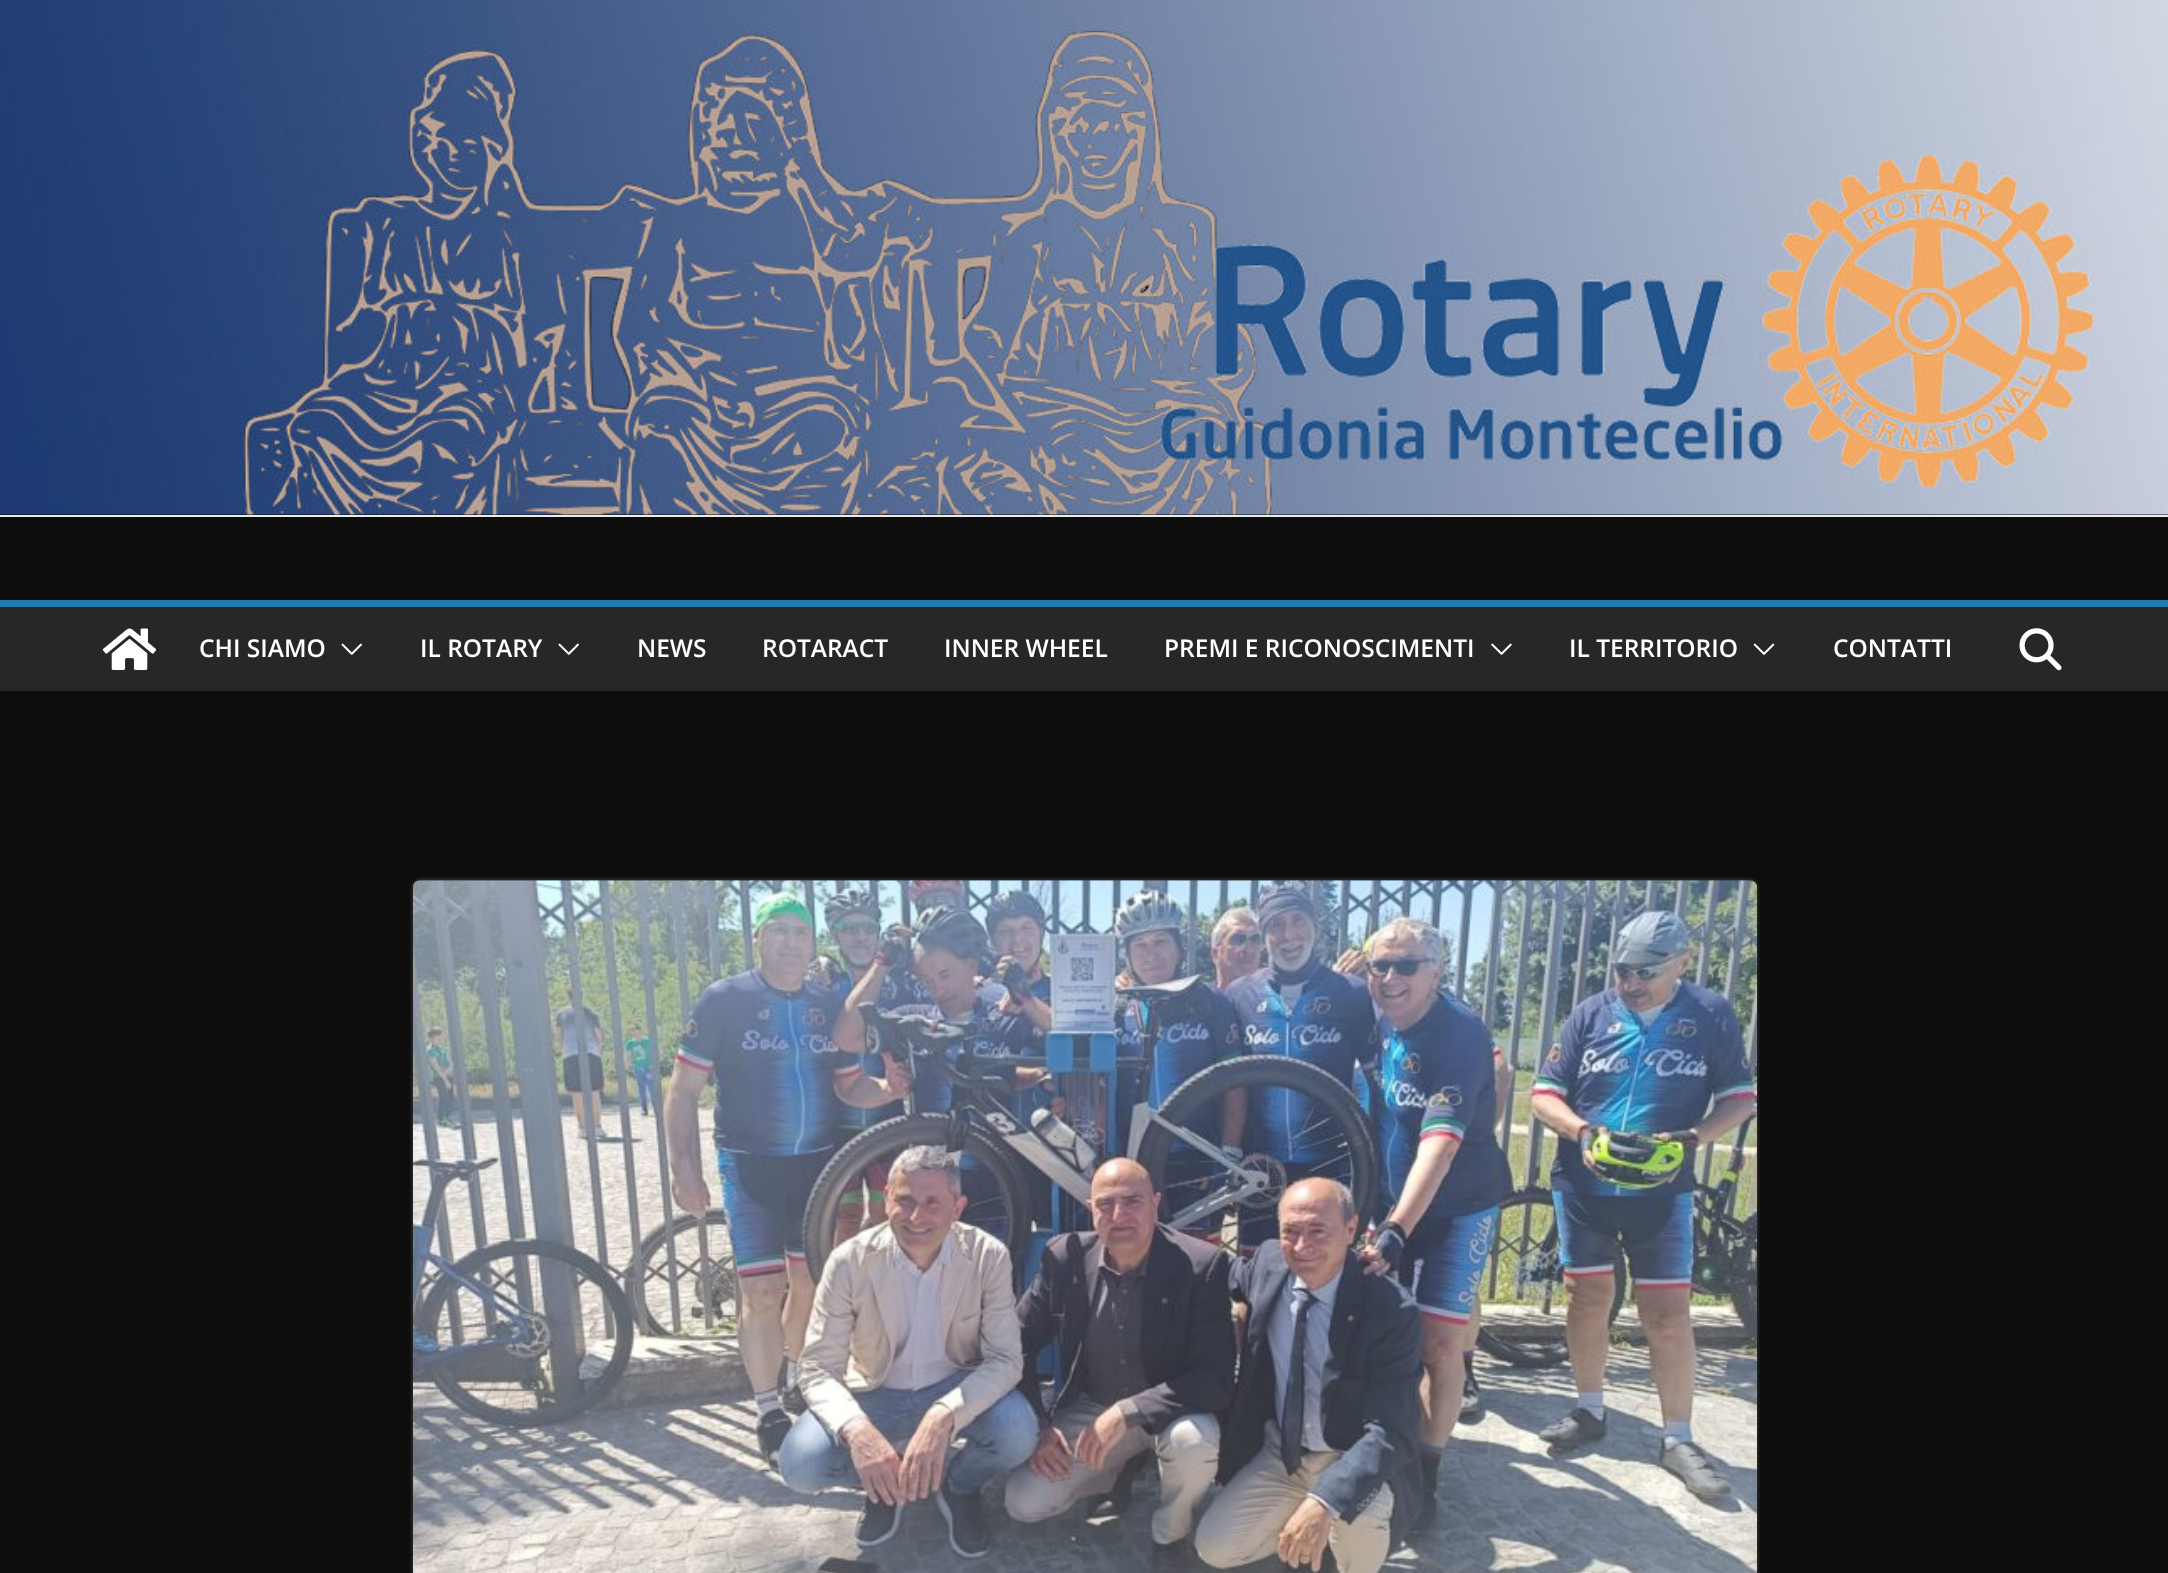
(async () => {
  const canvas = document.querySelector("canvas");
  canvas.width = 2168;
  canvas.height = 1573;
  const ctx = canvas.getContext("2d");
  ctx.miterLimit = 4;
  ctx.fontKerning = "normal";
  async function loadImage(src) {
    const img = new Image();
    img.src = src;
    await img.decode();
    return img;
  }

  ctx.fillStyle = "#0d0d0d";
  ctx.fillRect(0, 0, 2168, 1573);
  ctx.drawImage(await loadImage("img/1.png"), 0, 0, 2168, 515);
  for (const [x, y, w, h, color] of [
    [0, 515, 2168, 2, "#ebebeb"],
    [0, 607, 2168, 84, "#27272a"],
    [0, 600, 2168, 7, "#207daf"],
  ]) {
    ctx.fillStyle = color;
    ctx.fillRect(x, y, w, h);
  }
  ctx.drawImage(await loadImage("img/2.png"), 102, 628, 55, 42);
  ctx.drawImage(await loadImage("img/3.png"), 341, 643, 21, 12);
  ctx.drawImage(await loadImage("img/3.png"), 558, 643, 21, 12);
  ctx.drawImage(await loadImage("img/4.png"), 1491, 643, 21, 12);
  ctx.drawImage(await loadImage("img/5.png"), 1753, 643, 22, 12);
  ctx.drawImage(await loadImage("img/6.png"), 2019, 628, 43, 43);
  ctx.fillStyle = "rgba(255, 255, 255, 0.24)";
  ctx.filter = "blur(2px)";
  ctx.beginPath();
  ctx.roundRect(413, 880, 1344, 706, 7);
  ctx.fill();
  ctx.filter = "none";
  ctx.drawImage(await loadImage("img/7.png"), 413, 880, 1344, 693);
  ctx.font = "600 24.5px Open Sans";
  ctx.fillStyle = "#ffffff";
  for (const [text, x, y] of [
    ["CHI SIAMO", 199, 657],
    ["IL ROTARY", 420, 657],
    ["NEWS", 637, 657],
    ["ROTARACT", 762, 657],
    ["INNER WHEEL", 944, 657],
    ["PREMI E RICONOSCIMENTI", 1164, 657],
    ["IL TERRITORIO", 1569, 657],
    ["CONTATTI", 1833, 657],
  ]) {
    ctx.fillText(text, x, y);
  }
})();
